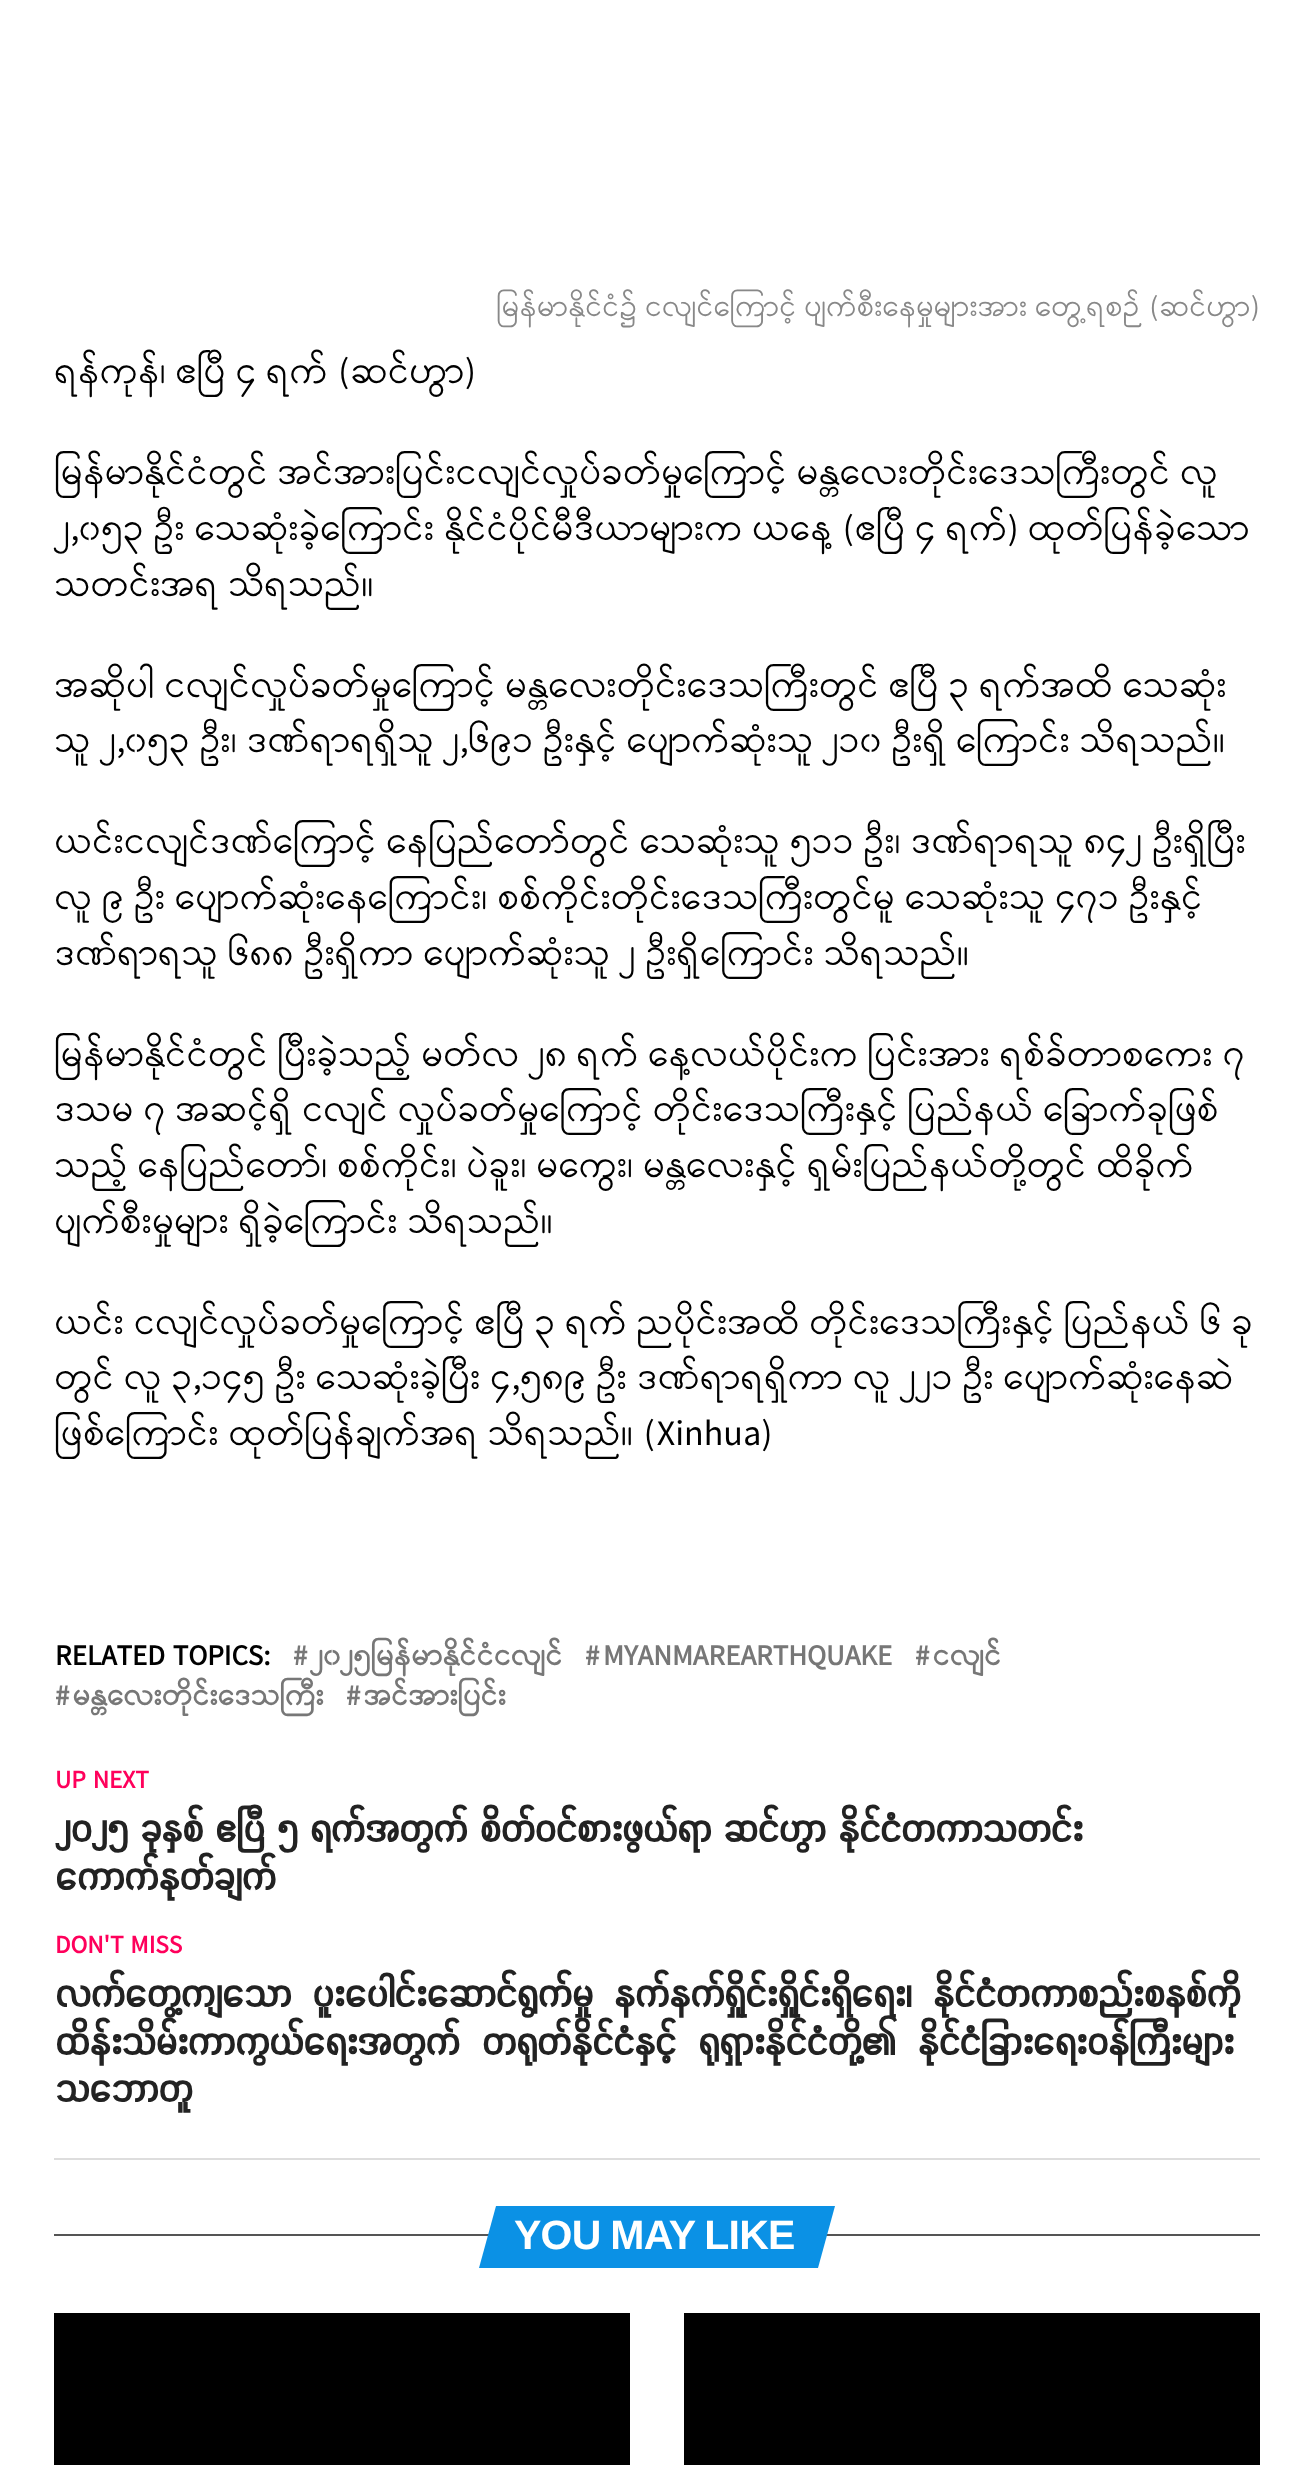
(async () => {
  const canvas = document.querySelector("canvas");
  canvas.width = 1313;
  canvas.height = 2465;
  const ctx = canvas.getContext("2d");
  ctx.miterLimit = 4;
  ctx.fontKerning = "normal";
  let path;

  ctx.fillStyle = "#ffffff";
  ctx.fillRect(0, 0, 1313, 2465);
  ctx.fillStyle = "#dddddd";
  ctx.fillRect(54, 2158, 1206, 2);
  ctx.fillStyle = "#555555";
  ctx.fillRect(54, 2234, 1206, 2);
  ctx.fillStyle = "#0b91e5";
  path = new Path2D("M496 2206H835L818 2268H479Z");
  ctx.fill(path);
  ctx.fillStyle = "#000000";
  ctx.fillRect(54, 2313, 576, 152);
  ctx.fillRect(684, 2313, 576, 152);
  ctx.font = "28.8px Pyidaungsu";
  ctx.fillStyle = "#888888";
  ctx.fillText("မြန်မာနိုင်ငံ၌ ငလျင်ကြောင့် ပျက်စီးနေမှုများအား တွေ့ရစဉ် (ဆင်ဟွာ)", 497, 316);
  ctx.font = "36px Pyidaungsu";
  ctx.fillStyle = "#000000";
  for (const [text, x, y] of [
    ["ရန်ကုန်၊ ဧပြီ ၄ ရက် (ဆင်ဟွာ)", 55, 383],
    ["မြန်မာနိုင်ငံတွင် အင်အားပြင်းငလျင်လှုပ်ခတ်မှုကြောင့် မန္တလေးတိုင်းဒေသကြီးတွင် လူ", 55, 484],
    ["၂,၀၅၃ ဦး သေဆုံးခဲ့ကြောင်း နိုင်ငံပိုင်မီဒီယာများက ယနေ့ (ဧပြီ ၄ ရက်) ထုတ်ပြန်ခဲ့သော", 55, 540],
    ["သတင်းအရ သိရသည်။", 55, 596],
    ["အဆိုပါ ငလျင်လှုပ်ခတ်မှုကြောင့် မန္တလေးတိုင်းဒေသကြီးတွင် ဧပြီ ၃ ရက်အထိ သေဆုံး", 55, 697],
    ["သူ ၂,၀၅၃ ဦး၊ ဒဏ်ရာရရှိသူ ၂,၆၉၁ ဦးနှင့် ပျောက်ဆုံးသူ ၂၁၀ ဦးရှိ ကြောင်း သိရသည်။", 55, 752],
    ["ယင်းငလျင်ဒဏ်ကြောင့် နေပြည်တော်တွင် သေဆုံးသူ ၅၁၁ ဦး၊ ဒဏ်ရာရသူ ၈၄၂ ဦးရှိပြီး", 55, 853],
    ["လူ ၉ ဦး ပျောက်ဆုံးနေကြောင်း၊ စစ်ကိုင်းတိုင်းဒေသကြီးတွင်မူ သေဆုံးသူ ၄၇၁ ဦးနှင့်", 55, 909],
    ["ဒဏ်ရာရသူ ၆၈၈ ဦးရှိကာ ပျောက်ဆုံးသူ ၂ ဦးရှိကြောင်း သိရသည်။", 55, 965],
    ["မြန်မာနိုင်ငံတွင် ပြီးခဲ့သည့် မတ်လ ၂၈ ရက် နေ့လယ်ပိုင်းက ပြင်းအား ရစ်ခ်တာစကေး ၇", 55, 1066],
    ["ဒသမ ၇ အဆင့်ရှိ ငလျင် လှုပ်ခတ်မှုကြောင့် တိုင်းဒေသကြီးနှင့် ပြည်နယ် ခြောက်ခုဖြစ်", 55, 1121],
    ["သည့် နေပြည်တော်၊ စစ်ကိုင်း၊ ပဲခူး၊ မကွေး၊ မန္တလေးနှင့် ရှမ်းပြည်နယ်တို့တွင် ထိခိုက်", 55, 1177],
    ["ပျက်စီးမှုများ ရှိခဲ့ကြောင်း သိရသည်။", 55, 1233],
    ["ယင်း ငလျင်လှုပ်ခတ်မှုကြောင့် ဧပြီ ၃ ရက် ညပိုင်းအထိ တိုင်းဒေသကြီးနှင့် ပြည်နယ် ၆ ခု", 55, 1334],
    ["တွင် လူ ၃,၁၄၅ ဦး သေဆုံးခဲ့ပြီး ၄,၅၈၉ ဦး ဒဏ်ရာရရှိကာ လူ ၂၂၁ ဦး ပျောက်ဆုံးနေဆဲ", 55, 1389],
    ["ဖြစ်ကြောင်း ထုတ်ပြန်ချက်အရ သိရသည်။ (Xinhua)", 55, 1445],
  ]) {
    ctx.fillText(text, x, y);
  }
  ctx.font = "bold 28.8px Pyidaungsu";
  ctx.fillStyle = "#777777";
  for (const [text, x, y] of [
    ["#", 293, 1665],
    ["၂၀၂၅မြန်မာနိုင်ငံငလျင်", 311, 1665],
    ["#", 585, 1665],
    ["MYANMAREARTHQUAKE", 603, 1665],
    ["#", 915, 1665],
    ["ငလျင်", 933, 1665],
    ["#", 55, 1705],
    ["မန္တလေးတိုင်းဒေသကြီး", 73, 1705],
    ["#", 346, 1705],
    ["အင်အားပြင်း", 364, 1705],
  ]) {
    ctx.fillText(text, x, y);
  }
  ctx.fillStyle = "#000000";
  ctx.fillText("RELATED TOPICS:", 55, 1665);
  ctx.font = "bold 25.25px Pyidaungsu";
  ctx.fillStyle = "#ff005b";
  ctx.fillText("UP NEXT", 55, 1788);
  ctx.letterSpacing = "-0.8px";
  ctx.wordSpacing = "3px";
  ctx.font = "bold 39.6px Myanmar Sans Pro";
  ctx.fillStyle = "#222222";
  ctx.fillText("၂၀၂၅ ခုနှစ် ဧပြီ ၅ ရက်အတွက် စိတ်ဝင်စားဖွယ်ရာ ဆင်ဟွာ နိုင်ငံတကာသတင်း", 55, 1842);
  ctx.wordSpacing = "0px";
  ctx.fillText("ကောက်နုတ်ချက်", 55, 1890);
  ctx.letterSpacing = "0px";
  ctx.font = "bold 25.25px Pyidaungsu";
  ctx.fillStyle = "#ff005b";
  ctx.fillText("DON'T MISS", 55, 1953);
  ctx.letterSpacing = "-0.8px";
  ctx.wordSpacing = "12px";
  ctx.font = "bold 39.6px Myanmar Sans Pro";
  ctx.fillStyle = "#222222";
  ctx.fillText("လက်တွေ့ကျသော ပူးပေါင်းဆောင်ရွက်မှု နက်နက်ရှိုင်းရှိုင်းရှိရေး၊ နိုင်ငံတကာစည်းစနစ်ကို", 55, 2007);
  ctx.wordSpacing = "13px";
  ctx.fillText("ထိန်းသိမ်းကာကွယ်ရေးအတွက် တရုတ်နိုင်ငံနှင့် ရုရှားနိုင်ငံတို့၏ နိုင်ငံခြားရေးဝန်ကြီးများ", 55, 2055);
  ctx.wordSpacing = "0px";
  ctx.fillText("သဘောတူ", 55, 2102);
  ctx.letterSpacing = "-0.75px";
  ctx.wordSpacing = "-1px";
  ctx.font = "bold 41px Liberation Sans";
  ctx.fillStyle = "#ffffff";
  ctx.fillText("YOU MAY LIKE", 514, 2249);
})();
